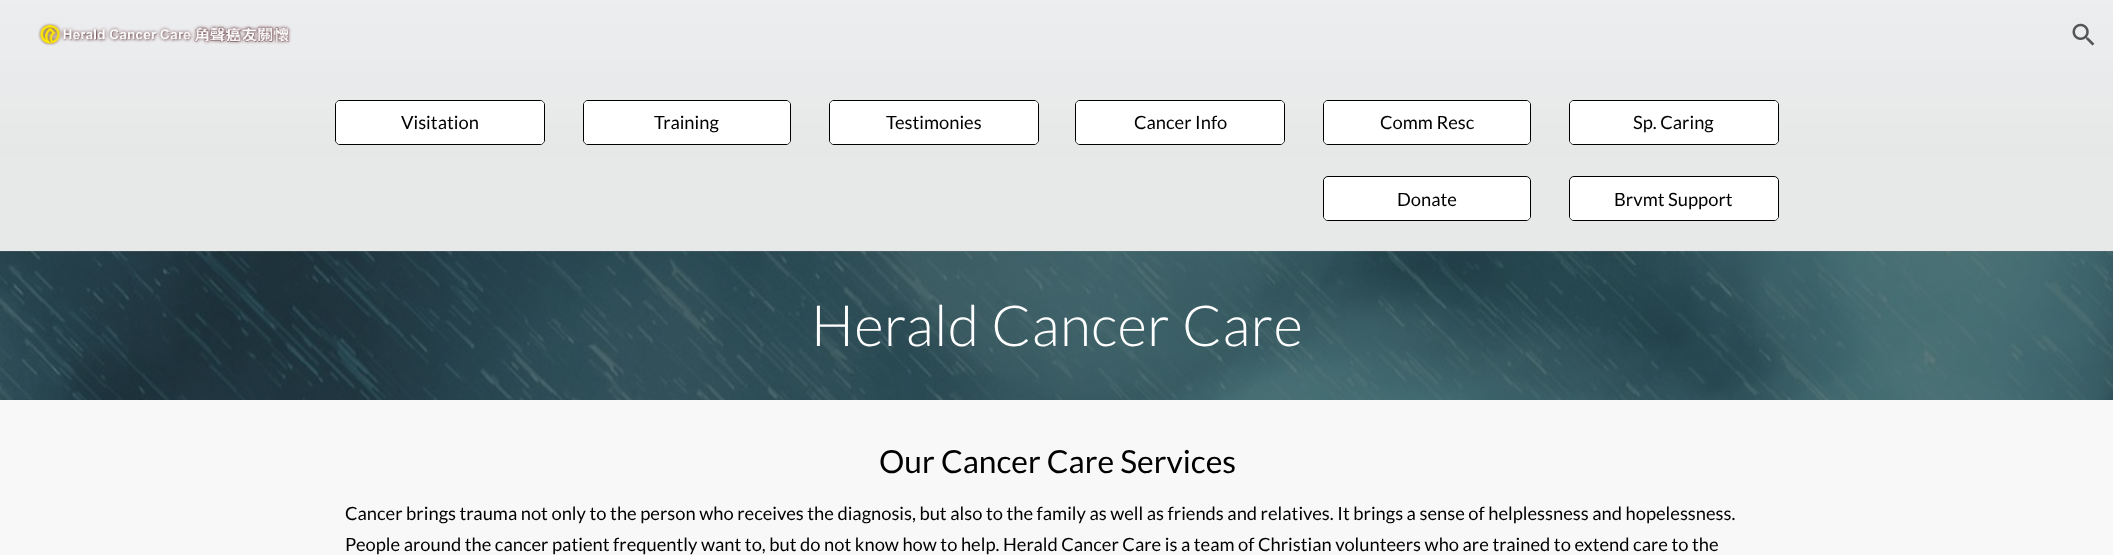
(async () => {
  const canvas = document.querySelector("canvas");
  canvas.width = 2113;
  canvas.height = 555;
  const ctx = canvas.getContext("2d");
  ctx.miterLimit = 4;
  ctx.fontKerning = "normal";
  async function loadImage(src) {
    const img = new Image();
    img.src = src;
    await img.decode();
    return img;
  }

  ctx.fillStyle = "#ffffff";
  ctx.fillRect(0, 0, 2113, 555);
  ctx.drawImage(await loadImage("img/3.png"), 0, 0, 2113, 252);
  ctx.drawImage(await loadImage("img/1.png"), 38, 23, 254, 23);
  ctx.drawImage(await loadImage("img/2.png"), 2072, 23, 23, 23);
  ctx.beginPath();
  ctx.roundRect(335.5, 100.5, 209, 44, 4.5);
  ctx.strokeStyle = "#000000";
  ctx.stroke();
  ctx.beginPath();
  ctx.roundRect(336, 101, 208, 43, 4);
  ctx.fill();
  ctx.beginPath();
  ctx.roundRect(583.5, 100.5, 207, 44, 4.5);
  ctx.stroke();
  ctx.beginPath();
  ctx.roundRect(584, 101, 206, 43, 4);
  ctx.fill();
  ctx.beginPath();
  ctx.roundRect(829.5, 100.5, 209, 44, 4.5);
  ctx.stroke();
  ctx.beginPath();
  ctx.roundRect(830, 101, 208, 43, 4);
  ctx.fill();
  ctx.beginPath();
  ctx.roundRect(1075.5, 100.5, 209, 44, 4.5);
  ctx.stroke();
  ctx.beginPath();
  ctx.roundRect(1076, 101, 208, 43, 4);
  ctx.fill();
  ctx.beginPath();
  ctx.roundRect(1323.5, 100.5, 207, 44, 4.5);
  ctx.stroke();
  ctx.beginPath();
  ctx.roundRect(1324, 101, 206, 43, 4);
  ctx.fill();
  ctx.beginPath();
  ctx.roundRect(1323.5, 176.5, 207, 44, 4.5);
  ctx.fill();
  ctx.stroke();
  ctx.beginPath();
  ctx.roundRect(1324, 178, 206, 42, 4);
  ctx.fill();
  ctx.beginPath();
  ctx.roundRect(1569.5, 100.5, 209, 44, 4.5);
  ctx.stroke();
  ctx.beginPath();
  ctx.roundRect(1570, 101, 208, 43, 4);
  ctx.fill();
  ctx.beginPath();
  ctx.roundRect(1569.5, 176.5, 209, 44, 4.5);
  ctx.fill();
  ctx.stroke();
  ctx.beginPath();
  ctx.roundRect(1570, 178, 208, 42, 4);
  ctx.fill();
  ctx.drawImage(await loadImage("img/4.png"), 0, 251, 2113, 149);
  ctx.fillStyle = "rgba(33, 33, 33, 0.6)";
  ctx.fillRect(0, 251, 2113, 149);
  ctx.fillStyle = "#f8f8f8";
  ctx.fillRect(0, 400, 2113, 155);
  ctx.font = "18.33px Lato";
  ctx.fillStyle = "#000000";
  for (const [text, x, y] of [
    ["Visitation", 401, 129],
    ["Training", 654, 129],
    ["Testimonies", 886, 129],
    ["Cancer Info", 1134, 129],
    ["Comm Resc", 1380, 129],
    ["Donate", 1397, 206],
    ["Sp. Caring", 1633, 129],
    ["Brvmt Support", 1614, 206],
  ]) {
    ctx.fillText(text, x, y);
  }
  ctx.letterSpacing = "0.6px";
  ctx.font = "300 56.75px Lato";
  ctx.fillStyle = "#ffffff";
  ctx.fillText("Herald Cancer Care", 811, 346);
  ctx.letterSpacing = "0px";
  ctx.font = "31.75px Lato";
  ctx.fillStyle = "#000000";
  ctx.fillText("Our Cancer Care Services", 879, 473);
  ctx.font = "18.33px Lato";
  ctx.fillText("Cancer brings trauma not only to the person who receives the diagnosis, but also to the family as well as friends and relatives. It brings a sense of helplessness and hopelessness.", 345, 520);
  ctx.fillText("People around the cancer patient frequently want to, but do not know how to help. Herald Cancer Care is a team of Christian volunteers who are trained to extend care to the", 345, 551);
})();
